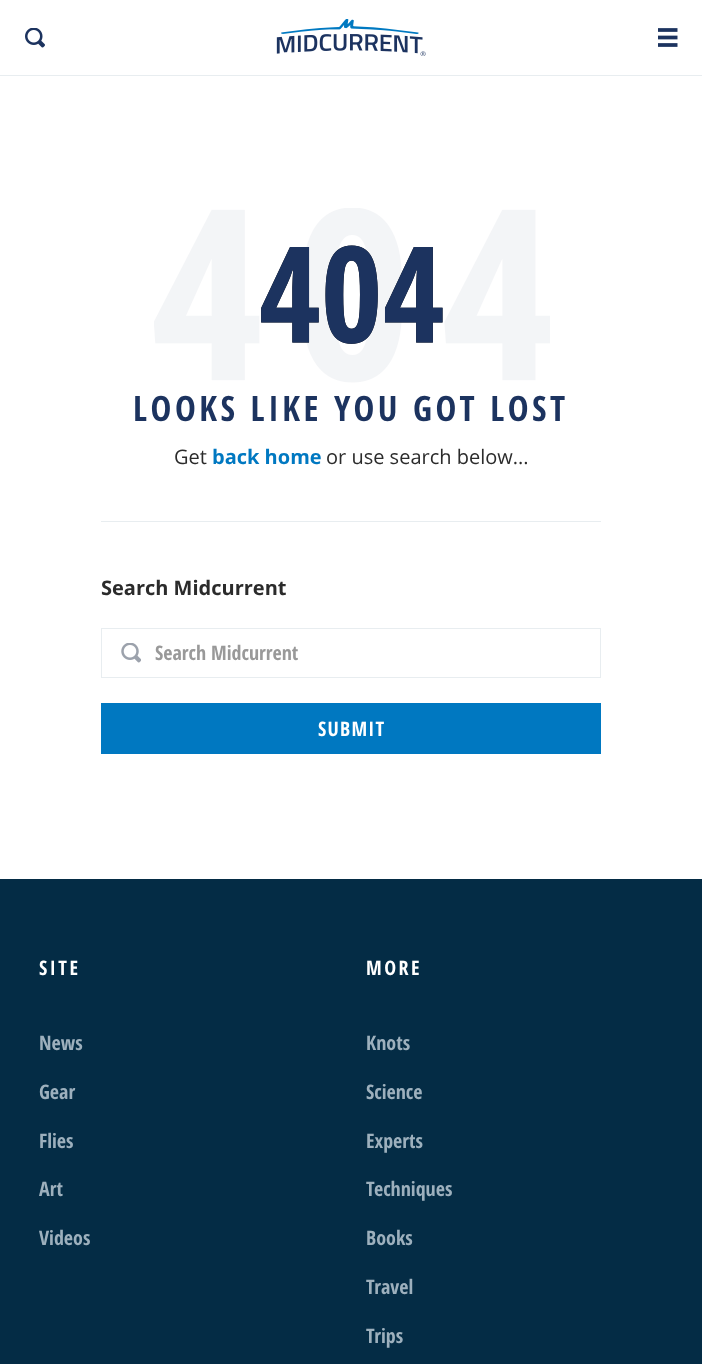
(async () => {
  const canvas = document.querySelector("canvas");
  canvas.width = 702;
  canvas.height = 1364;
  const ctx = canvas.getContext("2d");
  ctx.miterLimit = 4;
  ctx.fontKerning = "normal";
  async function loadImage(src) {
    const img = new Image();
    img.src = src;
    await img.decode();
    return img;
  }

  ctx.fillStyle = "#ffffff";
  ctx.fillRect(0, 0, 702, 1364);
  ctx.drawImage(await loadImage("img/1.png"), 25, 28, 20, 20);
  ctx.drawImage(await loadImage("img/2.png"), 276, 19, 150, 37);
  ctx.drawImage(await loadImage("img/3.png"), 658, 28, 20, 19);
  ctx.fillStyle = "#e8edf0";
  ctx.fillRect(0, 75, 702, 1);
  ctx.drawImage(await loadImage("img/4.png"), 154, 208, 396, 175);
  ctx.fillRect(101, 521, 500, 1);
  ctx.strokeStyle = "#e8edf0";
  ctx.strokeRect(101.5, 628.5, 499, 49);
  ctx.drawImage(await loadImage("img/5.png"), 121, 643, 20, 20);
  ctx.fillStyle = "#0078c1";
  ctx.fillRect(101, 703, 500, 51);
  ctx.fillStyle = "#042c45";
  ctx.fillRect(0, 879, 702, 485);
  ctx.letterSpacing = "3.5px";
  ctx.font = "bold 35px Open Sans Condensed";
  ctx.fillStyle = "#1c335f";
  ctx.fillText("LOOKS LIKE YOU GOT LOST", 133, 421);
  ctx.letterSpacing = "0px";
  ctx.font = "20px Open Sans";
  ctx.fillStyle = "#2b2b2b";
  ctx.fillText("Get", 174, 464);
  ctx.font = "bold 20px Open Sans";
  ctx.fillStyle = "#0078c1";
  ctx.fillText("back home", 212, 464);
  ctx.font = "20px Open Sans";
  ctx.fillStyle = "#2b2b2b";
  ctx.fillText("or use search below...", 326, 464);
  ctx.font = "bold 20px Open Sans";
  ctx.fillText("Search Midcurrent", 101, 595);
  ctx.font = "bold 20px Open Sans Condensed";
  ctx.fillStyle = "#999999";
  ctx.fillText("Search Midcurrent", 155, 660);
  ctx.letterSpacing = "1.25px";
  ctx.fillStyle = "#ffffff";
  ctx.fillText("SUBMIT", 318, 736);
  ctx.letterSpacing = "2.5px";
  ctx.fillText("SITE", 39, 975);
  ctx.letterSpacing = "0px";
  ctx.fillStyle = "#9db0bd";
  for (const [text, x, y] of [
    ["News", 39, 1050],
    ["Gear", 39, 1099],
    ["Flies", 39, 1148],
    ["Art", 39, 1196],
    ["Videos", 39, 1245],
  ]) {
    ctx.fillText(text, x, y);
  }
  ctx.letterSpacing = "2.5px";
  ctx.fillStyle = "#ffffff";
  ctx.fillText("MORE", 366, 975);
  ctx.letterSpacing = "0px";
  ctx.fillStyle = "#9db0bd";
  for (const [text, x, y] of [
    ["Knots", 366, 1050],
    ["Science", 366, 1099],
    ["Experts", 366, 1148],
    ["Techniques", 366, 1196],
    ["Books", 366, 1245],
    ["Travel", 366, 1294],
    ["Trips", 366, 1343],
  ]) {
    ctx.fillText(text, x, y);
  }
})();
